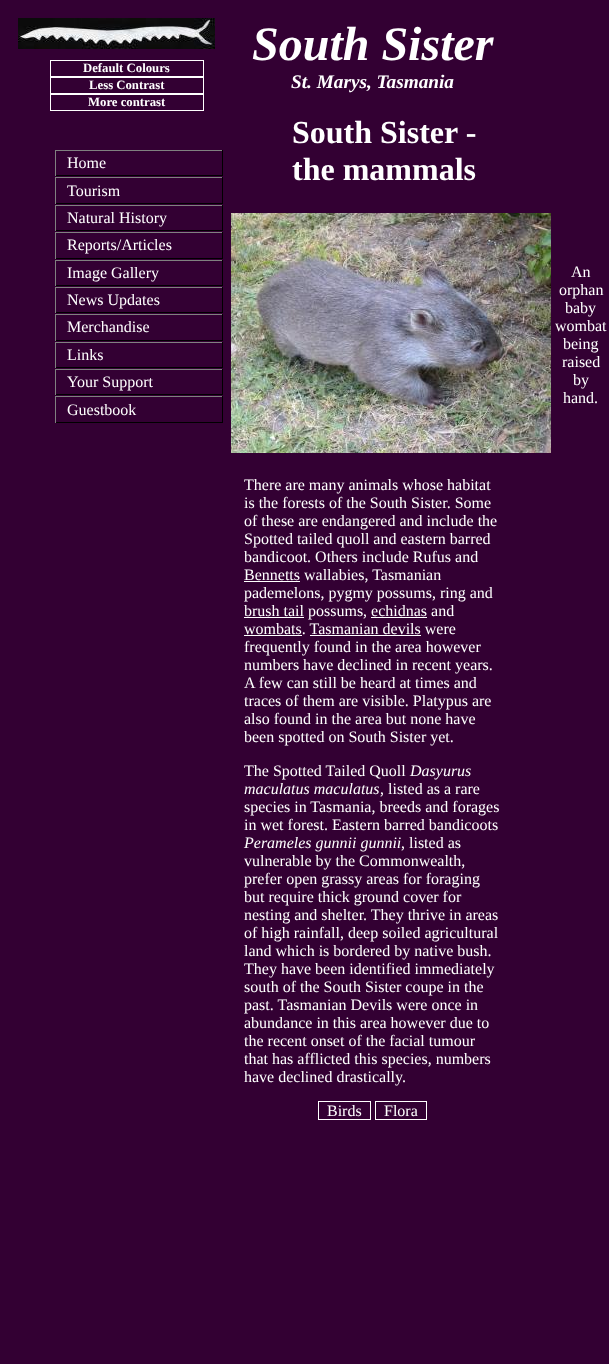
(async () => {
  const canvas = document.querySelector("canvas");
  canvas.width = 609;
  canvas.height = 1364;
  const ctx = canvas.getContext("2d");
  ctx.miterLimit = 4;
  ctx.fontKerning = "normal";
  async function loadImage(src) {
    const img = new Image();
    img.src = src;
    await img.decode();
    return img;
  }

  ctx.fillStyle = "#330033";
  ctx.fillRect(0, 0, 609, 1364);
  ctx.drawImage(await loadImage("img/1.png"), 18, 18, 197, 31);
  ctx.strokeStyle = "#ffffff";
  ctx.strokeRect(50.5, 60.5, 153, 16);
  ctx.strokeRect(50.5, 77.5, 153, 16);
  ctx.strokeRect(50.5, 94.5, 153, 16);
  ctx.drawImage(await loadImage("img/2.png"), 231, 213, 320, 240);
  for (const [x, y, w, h, color] of [
    [244, 581, 56, 1, "#ffffff"],
    [244, 617, 60, 1, "#ffffff"],
    [371, 617, 56, 1, "#ffffff"],
    [244, 635, 58, 1, "#ffffff"],
    [310, 635, 111, 1, "#ffffff"],
  ]) {
    ctx.fillStyle = color;
    ctx.fillRect(x, y, w, h);
  }
  ctx.strokeRect(318.5, 1101.5, 52, 18);
  ctx.strokeRect(375.5, 1101.5, 51, 18);
  for (const [x, y, w, h, color] of [
    [55, 150, 168, 1, "#808080"],
    [222, 150, 1, 26, "#000000"],
    [55, 175, 168, 1, "#000000"],
    [55, 150, 1, 26, "#808080"],
    [55, 177, 168, 1, "#808080"],
    [222, 177, 1, 27, "#000000"],
    [55, 203, 168, 1, "#000000"],
    [55, 177, 1, 27, "#808080"],
    [55, 205, 168, 1, "#808080"],
    [222, 205, 1, 26, "#000000"],
    [55, 230, 168, 1, "#000000"],
    [55, 205, 1, 26, "#808080"],
    [55, 232, 168, 1, "#808080"],
    [222, 232, 1, 27, "#000000"],
    [55, 258, 168, 1, "#000000"],
    [55, 232, 1, 27, "#808080"],
    [55, 260, 168, 1, "#808080"],
    [222, 260, 1, 26, "#000000"],
    [55, 285, 168, 1, "#000000"],
    [55, 260, 1, 26, "#808080"],
    [55, 287, 168, 1, "#808080"],
    [222, 287, 1, 26, "#000000"],
    [55, 312, 168, 1, "#000000"],
    [55, 287, 1, 26, "#808080"],
    [55, 314, 168, 1, "#808080"],
    [222, 314, 1, 27, "#000000"],
    [55, 340, 168, 1, "#000000"],
    [55, 314, 1, 27, "#808080"],
    [55, 342, 168, 1, "#808080"],
    [222, 342, 1, 26, "#000000"],
    [55, 367, 168, 1, "#000000"],
    [55, 342, 1, 26, "#808080"],
    [55, 369, 168, 1, "#808080"],
    [222, 369, 1, 26, "#000000"],
    [55, 394, 168, 1, "#000000"],
    [55, 369, 1, 26, "#808080"],
    [55, 396, 168, 1, "#808080"],
    [222, 396, 1, 27, "#000000"],
    [55, 422, 168, 1, "#000000"],
    [55, 396, 1, 27, "#808080"],
  ]) {
    ctx.fillStyle = color;
    ctx.fillRect(x, y, w, h);
  }
  ctx.font = "bold 12.75px Liberation Serif";
  ctx.fillStyle = "#ffffff";
  for (const [text, x, y] of [
    ["Default Colours", 83, 72],
    ["Less Contrast", 89, 89],
    ["More contrast", 88, 106],
  ]) {
    ctx.fillText(text, x, y);
  }
  ctx.font = "italic bold 48px Liberation Serif";
  ctx.fillText("South Sister", 252, 60);
  ctx.font = "italic bold 19.25px Liberation Serif";
  ctx.fillText("St. Marys, Tasmania", 291, 88);
  ctx.font = "bold 32px Liberation Serif";
  ctx.fillText("South Sister -", 292, 143);
  ctx.fillText("the mammals", 292, 180);
  ctx.font = "16px Liberation Serif";
  for (const [text, x, y] of [
    ["An", 571, 277],
    ["orphan", 559, 295],
    ["baby", 565, 313],
    ["wombat", 555, 331],
    ["being", 563, 349],
    ["raised", 562, 367],
    ["by", 573, 385],
    ["hand.", 563, 403],
    ["There are many animals whose habitat", 244, 490],
    ["is the forests of the South Sister. Some", 244, 508],
    ["of these are endangered and include the", 244, 526],
    ["Spotted tailed quoll and eastern barred", 244, 544],
    ["bandicoot. Others include Rufus and", 244, 562],
    ["Bennetts wallabies, Tasmanian", 244, 580],
    ["pademelons, pygmy possums, ring and", 244, 598],
    ["brush tail possums, echidnas and", 244, 616],
    ["wombats. Tasmanian devils were", 244, 634],
    ["frequently found in the area however", 244, 652],
    ["numbers have declined in recent years.", 244, 670],
    ["A few can still be heard at times and", 244, 688],
    ["traces of them are visible. Platypus are", 244, 706],
    ["also found in the area but none have", 244, 724],
    ["been spotted on South Sister yet.", 244, 742],
    ["The Spotted Tailed Quoll", 244, 776],
  ]) {
    ctx.fillText(text, x, y);
  }
  ctx.font = "italic 16px Liberation Serif";
  ctx.fillText("Dasyurus", 410, 776);
  ctx.fillText("maculatus maculatus", 244, 794);
  ctx.font = "16px Liberation Serif";
  for (const [text, x, y] of [
    [", listed as a rare", 380, 794],
    ["species in Tasmania, breeds and forages", 244, 812],
    ["in wet forest. Eastern barred bandicoots", 244, 830],
  ]) {
    ctx.fillText(text, x, y);
  }
  ctx.font = "italic 16px Liberation Serif";
  ctx.fillText("Perameles gunnii gunnii", 244, 848);
  ctx.font = "16px Liberation Serif";
  for (const [text, x, y] of [
    [", listed as", 401, 848],
    ["vulnerable by the Commonwealth,", 244, 866],
    ["prefer open grassy areas for foraging", 244, 884],
    ["but require thick ground cover for", 244, 902],
    ["nesting and shelter. They thrive in areas", 244, 920],
    ["of high rainfall, deep soiled agricultural", 244, 938],
    ["land which is bordered by native bush.", 244, 956],
    ["They have been identified immediately", 244, 974],
    ["south of the South Sister coupe in the", 244, 992],
    ["past. Tasmanian Devils were once in", 244, 1010],
    ["abundance in this area however due to", 244, 1028],
    ["the recent onset of the facial tumour", 244, 1046],
    ["that has afflicted this species, numbers", 244, 1064],
    ["have declined drastically.", 244, 1082],
    ["Birds", 327, 1116],
    ["Flora", 384, 1116],
    ["Home", 67, 168],
    ["Tourism", 67, 196],
    ["Natural History", 67, 223],
    ["Reports/Articles", 67, 250],
    ["Image Gallery", 67, 278],
    ["News Updates", 67, 305],
    ["Merchandise", 67, 332],
    ["Links", 67, 360],
    ["Your Support", 67, 387],
    ["Guestbook", 67, 415],
  ]) {
    ctx.fillText(text, x, y);
  }
})();
